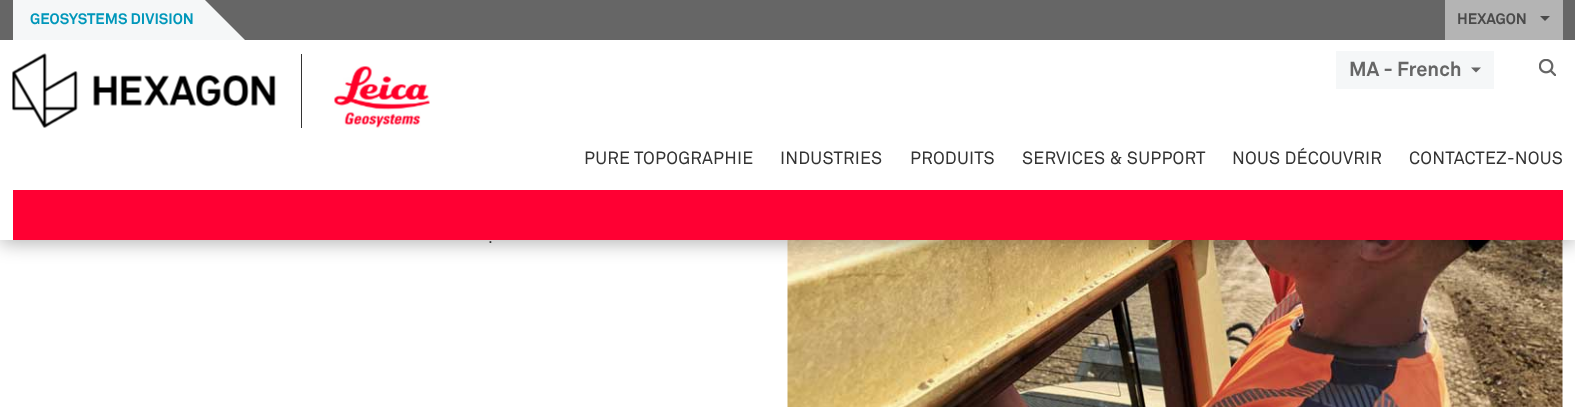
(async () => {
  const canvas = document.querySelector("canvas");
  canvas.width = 1575;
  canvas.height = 407;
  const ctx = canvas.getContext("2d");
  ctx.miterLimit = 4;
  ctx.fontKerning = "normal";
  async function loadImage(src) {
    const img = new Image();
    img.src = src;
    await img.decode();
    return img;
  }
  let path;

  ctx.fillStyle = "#ffffff";
  ctx.fillRect(0, 0, 1575, 407);
  ctx.drawImage(await loadImage("img/4.png"), 787, 240, 776, 167);
  ctx.fillStyle = "rgba(0, 0, 0, 0.3)";
  ctx.filter = "blur(9.5px)";
  ctx.beginPath();
  ctx.rect(0, 3, 1575, 240);
  ctx.fill();
  ctx.filter = "none";
  for (const [x, y, w, h, color] of [
    [0, 40, 1575, 200, "#ffffff"],
    [0, 0, 1575, 40, "#666666"],
    [13, 0, 192, 40, "#f5f7f8"],
  ]) {
    ctx.fillStyle = color;
    ctx.fillRect(x, y, w, h);
  }
  path = new Path2D("M245 40H205V0Z");
  ctx.fill(path);
  ctx.fillStyle = "#b4b4b4";
  ctx.fillRect(1445, 0, 118, 40);
  ctx.fillStyle = "#4a4a4a";
  path = new Path2D("M1540 16H1550L1545 21Z");
  ctx.fill(path);
  ctx.fillStyle = "#333333";
  ctx.fillRect(301, 54, 1, 74);
  ctx.drawImage(await loadImage("img/1.png"), 12, 53, 264, 75);
  ctx.drawImage(await loadImage("img/2.png"), 334, 66, 96, 62);
  ctx.fillStyle = "#f5f7f8";
  ctx.fillRect(1336, 51, 158, 38);
  ctx.fillStyle = "#666666";
  path = new Path2D("M1471 67.5H1481L1476 72.5Z");
  ctx.fill(path);
  ctx.drawImage(await loadImage("img/3.png"), 1539, 59, 17, 17);
  ctx.fillStyle = "#ff0033";
  ctx.fillRect(13, 190, 1550, 50);
  ctx.font = "bold 15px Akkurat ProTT";
  ctx.fillStyle = "#0097ba";
  ctx.fillText("GEOSYSTEMS DIVISION", 30, 24);
  ctx.fillStyle = "#4a4a4a";
  ctx.fillText("HEXAGON", 1457, 24);
  ctx.font = "bold 20px Akkurat ProTT";
  ctx.fillStyle = "#666666";
  ctx.fillText("MA - French", 1349, 76);
  ctx.letterSpacing = "0.2px";
  ctx.font = "17.5px Akkurat ProTT";
  ctx.fillStyle = "#333333";
  for (const [text, x, y] of [
    ["PURE TOPOGRAPHIE", 584, 164],
    ["INDUSTRIES", 780, 164],
    ["PRODUITS", 910, 164],
    ["SERVICES & SUPPORT", 1022, 164],
    ["NOUS DÉCOUVRIR", 1232, 164],
    ["CONTACTEZ-NOUS", 1409, 164],
  ]) {
    ctx.fillText(text, x, y);
  }
  ctx.letterSpacing = "0px";
  ctx.font = "17.5px Liberation Sans";
  ctx.fillText(".", 488, 243);
})();
